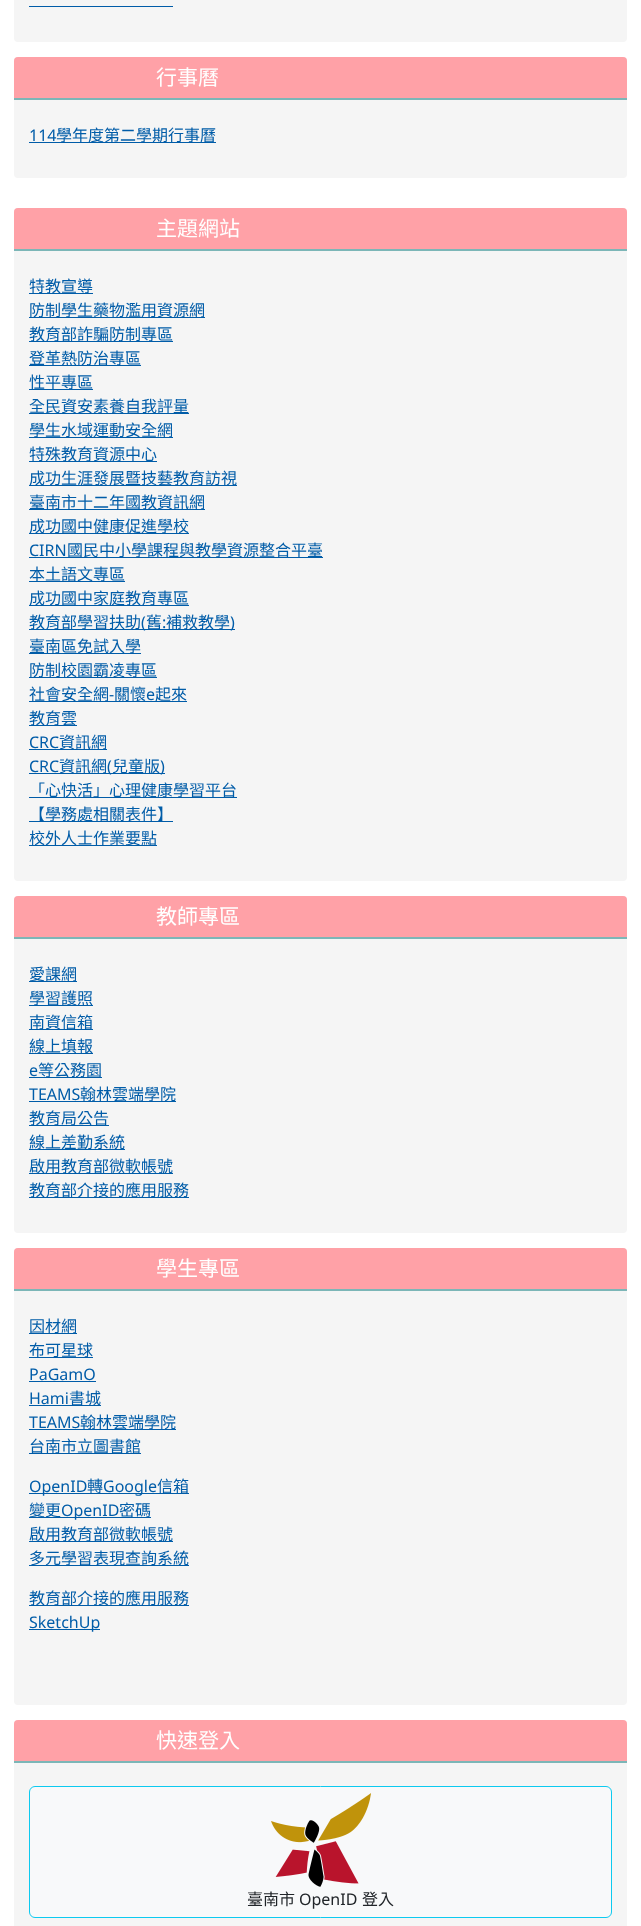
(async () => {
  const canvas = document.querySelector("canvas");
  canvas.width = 641;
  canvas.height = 1926;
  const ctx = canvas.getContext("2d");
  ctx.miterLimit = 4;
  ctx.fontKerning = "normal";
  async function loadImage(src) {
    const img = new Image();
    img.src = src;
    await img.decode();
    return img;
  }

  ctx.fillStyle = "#ffffff";
  ctx.fillRect(0, 0, 641, 1926);
  ctx.fillStyle = "#f5f5f5";
  ctx.beginPath();
  ctx.roundRect(14, -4, 613, 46, 4);
  ctx.fill();
  ctx.fillStyle = "#005ca8";
  ctx.fillRect(29, 6, 144, 1);
  ctx.fillStyle = "#f5f5f5";
  ctx.beginPath();
  ctx.roundRect(14, 57, 613, 121, 4);
  ctx.fill();
  ctx.fillStyle = "#ffa1a7";
  ctx.beginPath();
  ctx.roundRect(14, 57, 613, 43, [4, 4, 0, 0]);
  ctx.fill();
  ctx.fillStyle = "#7cb6b7";
  ctx.fillRect(14, 98, 613, 2);
  ctx.fillStyle = "#005ca8";
  ctx.fillRect(29, 142, 187, 1);
  ctx.fillStyle = "#f5f5f5";
  ctx.beginPath();
  ctx.roundRect(14, 208, 613, 673, 4);
  ctx.fill();
  ctx.fillStyle = "#ffa1a7";
  ctx.beginPath();
  ctx.roundRect(14, 208, 613, 43, [4, 4, 0, 0]);
  ctx.fill();
  for (const [x, y, w, h, color] of [
    [14, 249, 613, 2, "#7cb6b7"],
    [29, 293, 64, 1, "#005ca8"],
    [29, 317, 176, 1, "#005ca8"],
    [29, 341, 144, 1, "#005ca8"],
    [29, 365, 112, 1, "#005ca8"],
    [29, 389, 64, 1, "#005ca8"],
    [29, 413, 160, 1, "#005ca8"],
    [29, 437, 144, 1, "#005ca8"],
    [29, 461, 128, 1, "#005ca8"],
    [29, 485, 208, 1, "#005ca8"],
    [29, 509, 176, 1, "#005ca8"],
    [29, 533, 160, 1, "#005ca8"],
    [29, 557, 294, 1, "#005ca8"],
    [29, 581, 96, 1, "#005ca8"],
    [29, 605, 160, 1, "#005ca8"],
    [29, 629, 206, 1, "#005ca8"],
    [29, 653, 112, 1, "#005ca8"],
    [29, 677, 128, 1, "#005ca8"],
    [29, 701, 158, 1, "#005ca8"],
    [29, 725, 48, 1, "#005ca8"],
    [29, 749, 78, 1, "#005ca8"],
    [29, 773, 136, 1, "#005ca8"],
    [29, 797, 208, 1, "#005ca8"],
    [29, 821, 144, 1, "#005ca8"],
    [29, 845, 128, 1, "#005ca8"],
  ]) {
    ctx.fillStyle = color;
    ctx.fillRect(x, y, w, h);
  }
  ctx.fillStyle = "#f5f5f5";
  ctx.beginPath();
  ctx.roundRect(14, 896, 613, 337, 4);
  ctx.fill();
  ctx.fillStyle = "#ffa1a7";
  ctx.beginPath();
  ctx.roundRect(14, 896, 613, 43, [4, 4, 0, 0]);
  ctx.fill();
  for (const [x, y, w, h, color] of [
    [14, 937, 613, 2, "#7cb6b7"],
    [29, 981, 48, 1, "#005ca8"],
    [29, 1005, 64, 1, "#005ca8"],
    [29, 1029, 64, 1, "#005ca8"],
    [29, 1053, 64, 1, "#005ca8"],
    [29, 1077, 73, 1, "#005ca8"],
    [29, 1101, 147, 1, "#005ca8"],
    [29, 1125, 80, 1, "#005ca8"],
    [29, 1149, 96, 1, "#005ca8"],
    [29, 1173, 144, 1, "#005ca8"],
    [29, 1197, 160, 1, "#005ca8"],
  ]) {
    ctx.fillStyle = color;
    ctx.fillRect(x, y, w, h);
  }
  ctx.fillStyle = "#f5f5f5";
  ctx.beginPath();
  ctx.roundRect(14, 1248, 613, 457, 4);
  ctx.fill();
  ctx.fillStyle = "#ffa1a7";
  ctx.beginPath();
  ctx.roundRect(14, 1248, 613, 43, [4, 4, 0, 0]);
  ctx.fill();
  for (const [x, y, w, h, color] of [
    [14, 1289, 613, 2, "#7cb6b7"],
    [29, 1333, 48, 1, "#005ca8"],
    [29, 1357, 64, 1, "#005ca8"],
    [29, 1381, 67, 1, "#005ca8"],
    [29, 1405, 72, 1, "#005ca8"],
    [29, 1429, 147, 1, "#005ca8"],
    [29, 1453, 112, 1, "#005ca8"],
    [29, 1493, 160, 1, "#005ca8"],
    [29, 1517, 122, 1, "#005ca8"],
    [29, 1541, 144, 1, "#005ca8"],
    [29, 1565, 160, 1, "#005ca8"],
    [29, 1605, 160, 1, "#005ca8"],
    [29, 1629, 71, 1, "#005ca8"],
  ]) {
    ctx.fillStyle = color;
    ctx.fillRect(x, y, w, h);
  }
  ctx.fillStyle = "#f5f5f5";
  ctx.beginPath();
  ctx.roundRect(14, 1720, 613, 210, 4);
  ctx.fill();
  ctx.fillStyle = "#ffa1a7";
  ctx.beginPath();
  ctx.roundRect(14, 1720, 613, 43, [4, 4, 0, 0]);
  ctx.fill();
  ctx.fillStyle = "#7cb6b7";
  ctx.fillRect(14, 1761, 613, 2);
  ctx.fillStyle = "#f8f9fa";
  ctx.beginPath();
  ctx.roundRect(29.5, 1786.5, 582, 131, 5.5);
  ctx.fill();
  ctx.strokeStyle = "#0dcaf0";
  ctx.stroke();
  ctx.drawImage(await loadImage("img/1.png"), 271, 1793, 100, 94);
  ctx.font = "21px Noto Sans CJK TC";
  ctx.fillStyle = "#ffffff";
  ctx.fillText("行事曆", 156, 85);
  ctx.font = "16px Noto Sans";
  ctx.fillStyle = "#005ca8";
  ctx.fillText("114", 29, 141);
  ctx.font = "16px Noto Sans CJK TC";
  ctx.fillText("學年度第二學期行事曆", 56, 141);
  ctx.font = "21px Noto Sans CJK TC";
  ctx.fillStyle = "#ffffff";
  ctx.fillText("主題網站", 156, 236);
  ctx.font = "16px Noto Sans CJK TC";
  ctx.fillStyle = "#005ca8";
  for (const [text, x, y] of [
    ["特教宣導", 29, 292],
    ["防制學生藥物濫用資源網", 29, 316],
    ["教育部詐騙防制專區", 29, 340],
    ["登革熱防治專區", 29, 364],
    ["性平專區", 29, 388],
    ["全民資安素養自我評量", 29, 412],
    ["學生水域運動安全網", 29, 436],
    ["特殊教育資源中心", 29, 460],
    ["成功生涯發展暨技藝教育訪視", 29, 484],
    ["臺南市十二年國教資訊網", 29, 508],
    ["成功國中健康促進學校", 29, 532],
  ]) {
    ctx.fillText(text, x, y);
  }
  ctx.font = "16px Noto Sans";
  ctx.fillText("CIRN", 29, 556);
  ctx.font = "16px Noto Sans CJK TC";
  for (const [text, x, y] of [
    ["國民中小學課程與教學資源整合平臺", 67, 556],
    ["本土語文專區", 29, 580],
    ["成功國中家庭教育專區", 29, 604],
    ["教育部學習扶助", 29, 628],
  ]) {
    ctx.fillText(text, x, y);
  }
  ctx.font = "16px Noto Sans";
  ctx.fillText("(", 141, 628);
  ctx.font = "16px Noto Sans CJK TC";
  ctx.fillText("舊", 146, 628);
  ctx.font = "16px Noto Sans";
  ctx.fillText(":", 162, 628);
  ctx.font = "16px Noto Sans CJK TC";
  ctx.fillText("補救教學", 166, 628);
  ctx.font = "16px Noto Sans";
  ctx.fillText(")", 230, 628);
  ctx.font = "16px Noto Sans CJK TC";
  for (const [text, x, y] of [
    ["臺南區免試入學", 29, 652],
    ["防制校園霸凌專區", 29, 676],
    ["社會安全網", 29, 700],
  ]) {
    ctx.fillText(text, x, y);
  }
  ctx.font = "16px Noto Sans";
  ctx.fillText("-", 109, 700);
  ctx.font = "16px Noto Sans CJK TC";
  ctx.fillText("關懷", 114, 700);
  ctx.font = "16px Noto Sans";
  ctx.fillText("e", 146, 700);
  ctx.font = "16px Noto Sans CJK TC";
  ctx.fillText("起來", 155, 700);
  ctx.fillText("教育雲", 29, 724);
  ctx.font = "16px Noto Sans";
  ctx.fillText("CRC", 29, 748);
  ctx.font = "16px Noto Sans CJK TC";
  ctx.fillText("資訊網", 59, 748);
  ctx.font = "16px Noto Sans";
  ctx.fillText("CRC", 29, 772);
  ctx.font = "16px Noto Sans CJK TC";
  ctx.fillText("資訊網", 59, 772);
  ctx.font = "16px Noto Sans";
  ctx.fillText("(", 107, 772);
  ctx.font = "16px Noto Sans CJK TC";
  ctx.fillText("兒童版", 112, 772);
  ctx.font = "16px Noto Sans";
  ctx.fillText(")", 160, 772);
  ctx.font = "16px Noto Sans CJK TC";
  for (const [text, x, y] of [
    ["「心快活」心理健康學習平台", 29, 796],
    ["【學務處相關表件】", 29, 820],
    ["校外人士作業要點", 29, 844],
  ]) {
    ctx.fillText(text, x, y);
  }
  ctx.font = "21px Noto Sans CJK TC";
  ctx.fillStyle = "#ffffff";
  ctx.fillText("教師專區", 156, 924);
  ctx.font = "16px Noto Sans CJK TC";
  ctx.fillStyle = "#005ca8";
  for (const [text, x, y] of [
    ["愛課網", 29, 980],
    ["學習護照", 29, 1004],
    ["南資信箱", 29, 1028],
    ["線上填報", 29, 1052],
  ]) {
    ctx.fillText(text, x, y);
  }
  ctx.font = "16px Noto Sans";
  ctx.fillText("e", 29, 1076);
  ctx.font = "16px Noto Sans CJK TC";
  ctx.fillText("等公務園", 38, 1076);
  ctx.font = "16px Noto Sans";
  ctx.fillText("TEAMS", 29, 1100);
  ctx.font = "16px Noto Sans CJK TC";
  for (const [text, x, y] of [
    ["翰林雲端學院", 80, 1100],
    ["教育局公告", 29, 1124],
    ["線上差勤系統", 29, 1148],
    ["啟用教育部微軟帳號", 29, 1172],
    ["教育部介接的應用服務", 29, 1196],
  ]) {
    ctx.fillText(text, x, y);
  }
  ctx.font = "21px Noto Sans CJK TC";
  ctx.fillStyle = "#ffffff";
  ctx.fillText("學生專區", 156, 1276);
  ctx.font = "16px Noto Sans CJK TC";
  ctx.fillStyle = "#005ca8";
  ctx.fillText("因材網", 29, 1332);
  ctx.fillText("布可星球", 29, 1356);
  ctx.font = "16px Noto Sans";
  ctx.fillText("PaGamO", 29, 1380);
  ctx.fillText("Hami", 29, 1404);
  ctx.font = "16px Noto Sans CJK TC";
  ctx.fillText("書城", 69, 1404);
  ctx.font = "16px Noto Sans";
  ctx.fillText("TEAMS", 29, 1428);
  ctx.font = "16px Noto Sans CJK TC";
  ctx.fillText("翰林雲端學院", 80, 1428);
  ctx.fillText("台南市立圖書館", 29, 1452);
  ctx.font = "16px Noto Sans";
  ctx.fillText("OpenID", 29, 1492);
  ctx.font = "16px Noto Sans CJK TC";
  ctx.fillText("轉", 87, 1492);
  ctx.font = "16px Noto Sans";
  ctx.fillText("Google", 103, 1492);
  ctx.font = "16px Noto Sans CJK TC";
  ctx.fillText("信箱", 157, 1492);
  ctx.fillText("變更", 29, 1516);
  ctx.font = "16px Noto Sans";
  ctx.fillText("OpenID", 61, 1516);
  ctx.font = "16px Noto Sans CJK TC";
  for (const [text, x, y] of [
    ["密碼", 119, 1516],
    ["啟用教育部微軟帳號", 29, 1540],
    ["多元學習表現查詢系統", 29, 1564],
    ["教育部介接的應用服務", 29, 1604],
  ]) {
    ctx.fillText(text, x, y);
  }
  ctx.font = "16px Noto Sans";
  ctx.fillText("SketchUp", 29, 1628);
  ctx.font = "21px Noto Sans CJK TC";
  ctx.fillStyle = "#ffffff";
  ctx.fillText("快速登入", 156, 1748);
  ctx.font = "16px Noto Sans CJK TC";
  ctx.fillStyle = "#212529";
  ctx.fillText("臺南市", 247, 1905);
  ctx.font = "16px Noto Sans";
  ctx.fillText("OpenID", 299, 1905);
  ctx.font = "16px Noto Sans CJK TC";
  ctx.fillText("登入", 362, 1905);
})();
